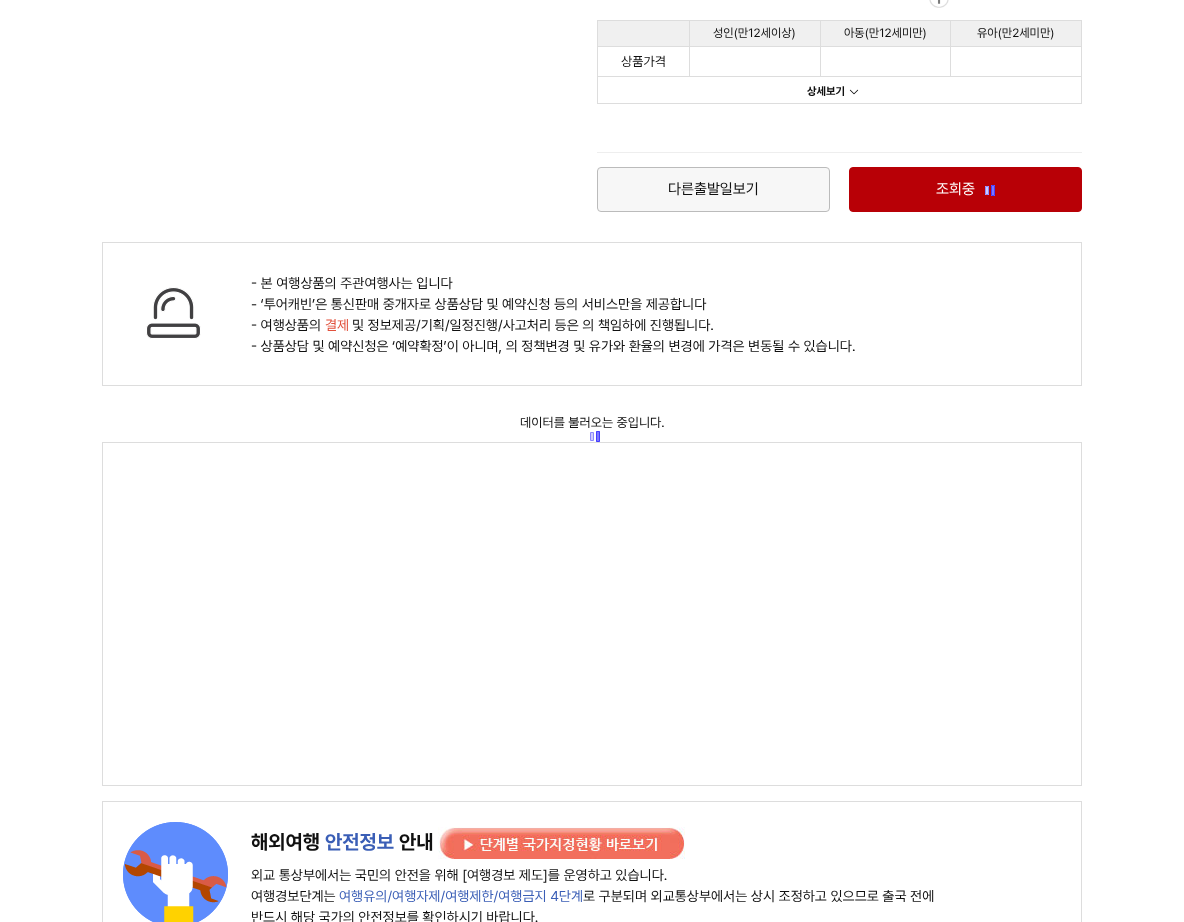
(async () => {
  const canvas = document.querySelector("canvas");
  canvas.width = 1184;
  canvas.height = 922;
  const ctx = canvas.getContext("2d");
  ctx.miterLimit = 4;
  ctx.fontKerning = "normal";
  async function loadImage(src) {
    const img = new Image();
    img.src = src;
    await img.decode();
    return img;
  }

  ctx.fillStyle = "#ffffff";
  ctx.fillRect(0, 0, 1184, 922);
  ctx.fillStyle = "#eeeeee";
  ctx.fillRect(597, 152, 485, 1);
  ctx.drawImage(await loadImage("img/1.png"), 929, 0, 20, 8);
  for (const [x, y, w, h, color] of [
    [598, 21, 91, 25, "#f0f0f0"],
    [950, 20, 132, 1, "#dddddd"],
    [950, 46, 132, 1, "#dddddd"],
    [597, 76, 485, 1, "#dddddd"],
    [950, 46, 1, 31, "#dddddd"],
    [820, 46, 131, 1, "#dddddd"],
    [950, 20, 1, 27, "#dddddd"],
    [820, 20, 131, 1, "#dddddd"],
    [820, 46, 1, 31, "#dddddd"],
    [689, 46, 132, 1, "#dddddd"],
    [820, 20, 1, 27, "#dddddd"],
    [689, 20, 132, 1, "#dddddd"],
    [689, 46, 1, 31, "#dddddd"],
    [597, 46, 93, 1, "#dddddd"],
    [689, 20, 1, 27, "#dddddd"],
    [597, 20, 93, 1, "#dddddd"],
    [1081, 76, 1, 28, "#dddddd"],
    [597, 103, 485, 1, "#dddddd"],
    [597, 76, 1, 28, "#dddddd"],
    [597, 46, 1, 31, "#dddddd"],
    [597, 20, 1, 27, "#dddddd"],
    [690, 21, 130, 25, "#f0f0f0"],
    [821, 21, 129, 25, "#f0f0f0"],
    [951, 21, 130, 25, "#f0f0f0"],
    [1081, 46, 1, 31, "#dddddd"],
    [1081, 20, 1, 27, "#dddddd"],
  ]) {
    ctx.fillStyle = color;
    ctx.fillRect(x, y, w, h);
  }
  ctx.drawImage(await loadImage("img/2.png"), 849, 89, 10, 6);
  ctx.fillStyle = "#f7f7f7";
  ctx.beginPath();
  ctx.roundRect(597.5, 167.5, 232, 44, 3.5);
  ctx.fill();
  ctx.strokeStyle = "#bbbbbb";
  ctx.stroke();
  ctx.fillStyle = "#b80006";
  ctx.beginPath();
  ctx.roundRect(849.5, 167.5, 232, 44, 3.5);
  ctx.fill();
  ctx.strokeStyle = "#b80006";
  ctx.stroke();
  ctx.drawImage(await loadImage("img/3.png"), 985, 185, 10, 11);
  ctx.strokeStyle = "#dddddd";
  ctx.strokeRect(102.5, 242.5, 979, 143);
  ctx.drawImage(await loadImage("img/4.png"), 146, 287, 55, 52);
  ctx.drawImage(await loadImage("img/5.png"), 590, 431, 10, 11);
  ctx.strokeRect(102.5, 442.5, 979, 343);
  ctx.strokeRect(102.5, 801.5, 979, 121);
  ctx.drawImage(await loadImage("img/6.png"), 123, 822, 105, 100);
  ctx.drawImage(await loadImage("img/7.png"), 438, 827, 247, 32);
  ctx.font = "12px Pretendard";
  ctx.fillStyle = "#101010";
  for (const [text, x, y] of [
    ["성인(만12세이상)", 713, 37],
    ["아동(만12세미만)", 844, 37],
    ["유아(만2세미만)", 977, 37],
  ]) {
    ctx.fillText(text, x, y);
  }
  ctx.font = "13px Pretendard";
  ctx.fillText("상품가격", 621, 66);
  ctx.font = "bold 11px Pretendard";
  ctx.fillText("상세보기", 807, 95);
  ctx.font = "15px Pretendard";
  ctx.fillText("다른출발일보기", 668, 194);
  ctx.fillStyle = "#ffffff";
  ctx.fillText("조회중", 936, 194);
  ctx.font = "14px Pretendard";
  ctx.fillStyle = "#101010";
  for (const [text, x, y] of [
    ["- 본 여행상품의 주관여행사는 입니다", 251, 288],
    ["- ‘투어캐빈’은 통신판매 중개자로 상품상담 및 예약신청 등의 서비스만을 제공합니다", 251, 309],
    ["- 여행상품의", 251, 330],
  ]) {
    ctx.fillText(text, x, y);
  }
  ctx.fillStyle = "#e1513c";
  ctx.fillText("결제", 325, 330);
  ctx.fillStyle = "#101010";
  ctx.fillText("및 정보제공/기획/일정진행/사고처리 등은 의 책임하에 진행됩니다.", 352, 330);
  ctx.fillText("- 상품상담 및 예약신청은 ‘예약확정’이 아니며, 의 정책변경 및 유가와 환율의 변경에 가격은 변동될 수 있습니다.", 251, 351);
  ctx.font = "13px Pretendard";
  ctx.fillText("데이터를 불러오는 중입니다.", 520, 427);
  ctx.font = "bold 20px Pretendard";
  ctx.fillText("해외여행", 251, 849);
  ctx.fillStyle = "#3a5eb6";
  ctx.fillText("안전정보", 325, 849);
  ctx.fillStyle = "#101010";
  ctx.fillText("안내", 399, 849);
  ctx.font = "14px Pretendard";
  ctx.fillText("외교 통상부에서는 국민의 안전을 위해 [여행경보 제도]를 운영하고 있습니다.", 251, 880);
  ctx.fillText("여행경보단계는", 251, 901);
  ctx.fillStyle = "#3a5eb6";
  ctx.fillText("여행유의/여행자제/여행제한/여행금지 4단계", 339, 901);
  ctx.fillStyle = "#101010";
  ctx.fillText("로 구분되며 외교통상부에서는 상시 조정하고 있으므로 출국 전에", 583, 901);
  ctx.fillText("반드시 해당 국가의 안전정보를 확인하시기 바랍니다.", 251, 922);
})();
